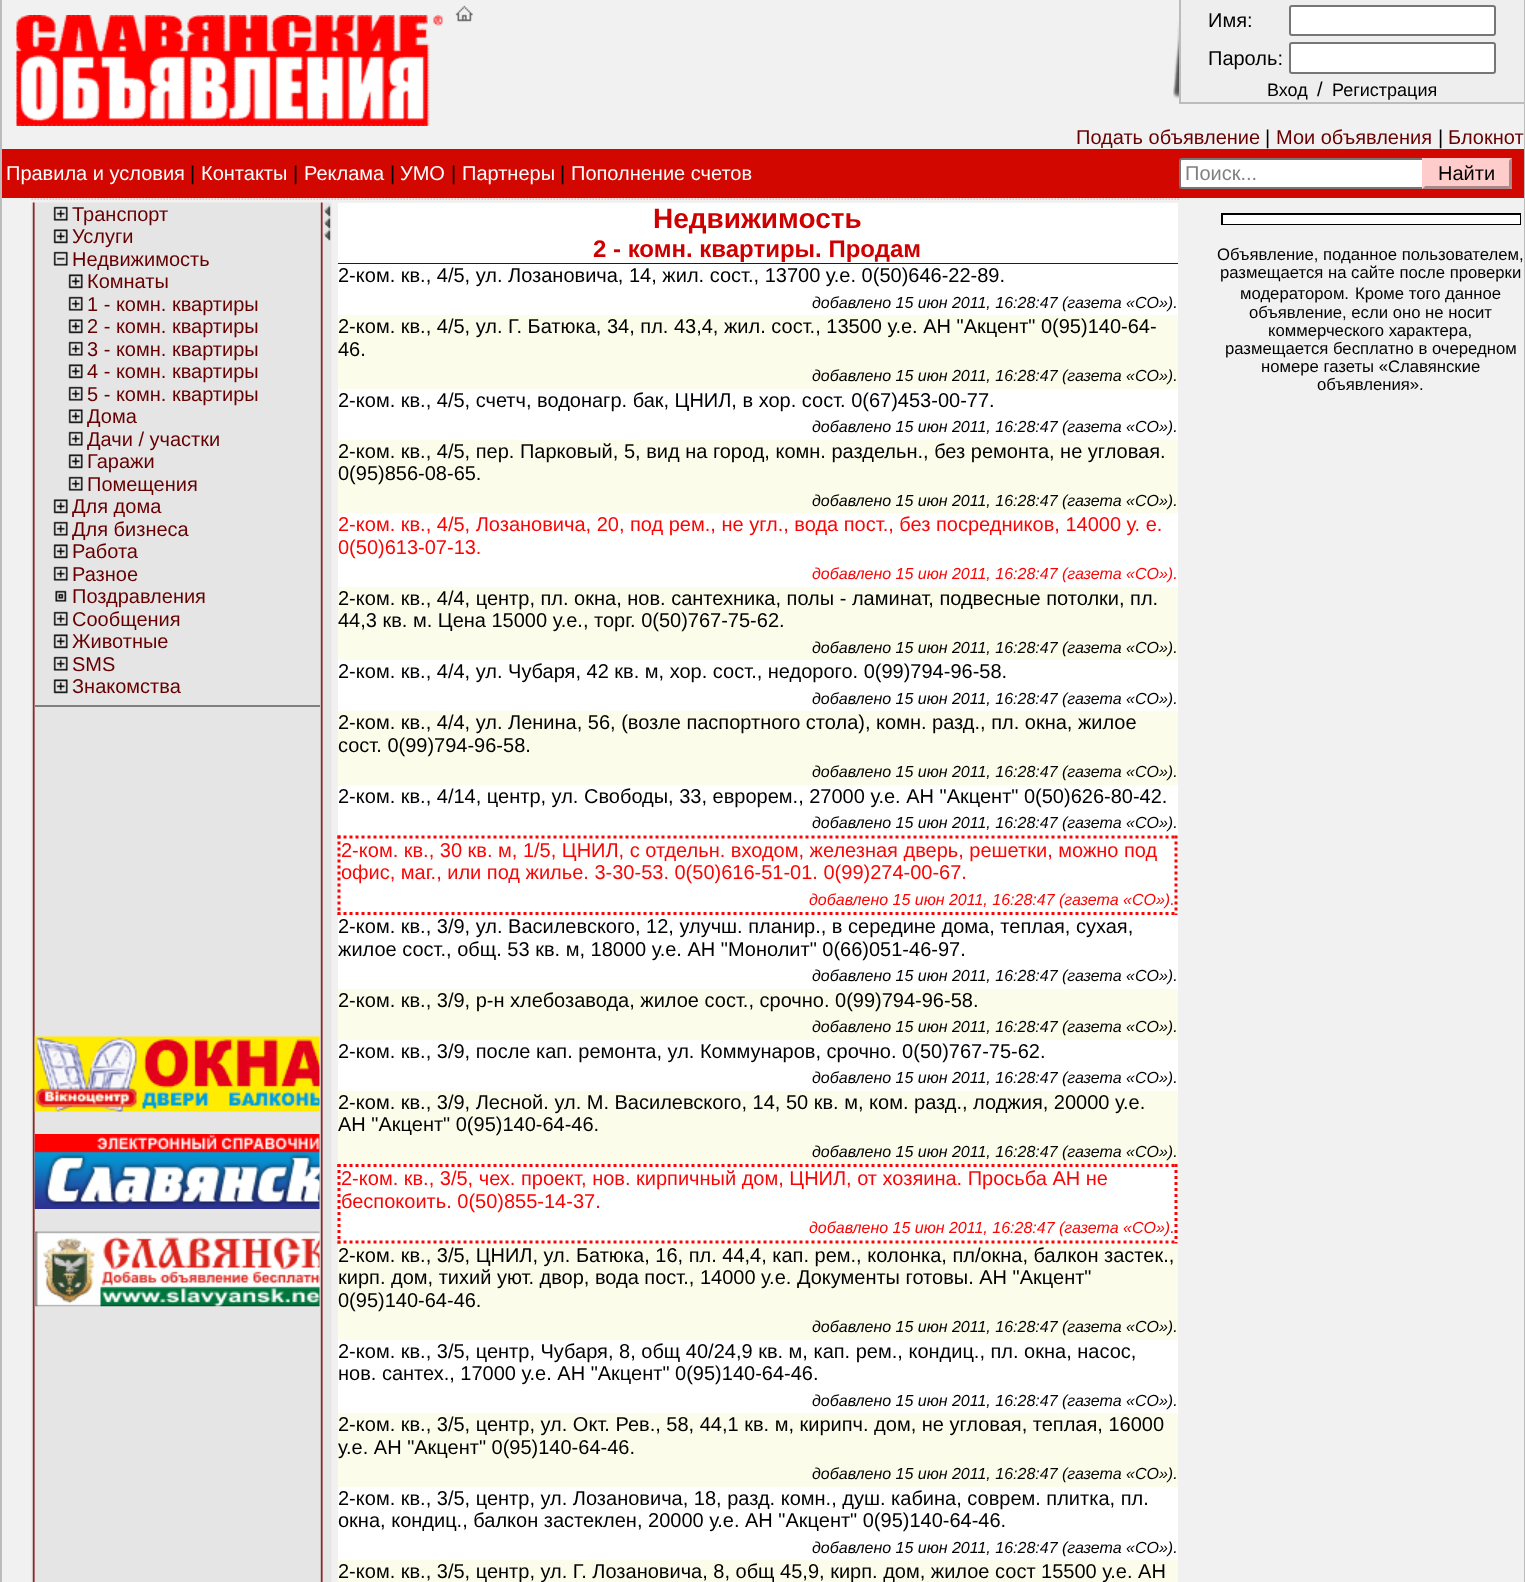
(async () => {
  const canvas = document.querySelector("canvas");
  canvas.width = 1525;
  canvas.height = 1582;
  const ctx = canvas.getContext("2d");
  ctx.miterLimit = 4;
  ctx.fontKerning = "normal";
  async function loadImage(src) {
    const img = new Image();
    img.src = src;
    await img.decode();
    return img;
  }
  let path;

  ctx.fillStyle = "#f1f1f1";
  ctx.fillRect(0, 0, 1525, 1582);
  ctx.fillStyle = "#bcbcbc";
  ctx.fillRect(1524, 0, 1, 1582);
  ctx.fillRect(0, 0, 2, 1582);
  ctx.drawImage(await loadImage("img/1.png"), 16, 15, 427, 111);
  ctx.drawImage(await loadImage("img/2.png"), 455, 5, 18, 17);
  ctx.drawImage(await loadImage("img/3.png"), 1173, 22, 6, 77);
  for (const [x, y, w, h, color] of [
    [1181, 0, 343, 102, "#eeeeee"],
    [1179, 102, 345, 2, "#bcbcbc"],
    [1179, 0, 2, 104, "#bcbcbc"],
  ]) {
    ctx.fillStyle = color;
    ctx.fillRect(x, y, w, h);
  }
  ctx.fillStyle = "#ffffff";
  ctx.beginPath();
  ctx.roundRect(1290, 6, 205, 29, 2);
  ctx.fill();
  ctx.strokeStyle = "#767676";
  ctx.lineWidth = 2;
  ctx.stroke();
  ctx.beginPath();
  ctx.roundRect(1290, 43, 205, 30, 2);
  ctx.fill();
  ctx.stroke();
  ctx.fillStyle = "#d10700";
  ctx.fillRect(2, 149, 1522, 49);
  ctx.fillStyle = "#ffffff";
  ctx.beginPath();
  ctx.roundRect(1180, 159, 247, 29, 2);
  ctx.fill();
  ctx.stroke();
  ctx.fillStyle = "#ffcccc";
  ctx.fillRect(1422, 158, 90, 31);
  ctx.fillStyle = "#aa8888";
  path = new Path2D("M1512 157.5V189L1509 186V160.5Z");
  ctx.fill(path);
  path = new Path2D("M1512 189H1422L1425 186H1509Z");
  ctx.fill(path);
  ctx.fillStyle = "#ffcccc";
  path = new Path2D("M1422 189V157.5L1425 160.5V186Z");
  ctx.fill(path);
  path = new Path2D("M31.5 199H1180.5");
  ctx.strokeStyle = "#ffaaaa";
  ctx.lineWidth = 1.5;
  ctx.setLineDash([1.5, 1.5]);
  ctx.stroke(path);
  ctx.drawImage(await loadImage("img/4.png"), 31, 202, 301, 1380);
  ctx.drawImage(await loadImage("img/5.png"), 53, 206, 15, 15);
  ctx.drawImage(await loadImage("img/6.png"), 53, 229, 15, 15);
  ctx.drawImage(await loadImage("img/7.png"), 53, 251, 15, 15);
  ctx.drawImage(await loadImage("img/6.png"), 68, 274, 15, 15);
  ctx.drawImage(await loadImage("img/5.png"), 68, 296, 15, 15);
  ctx.drawImage(await loadImage("img/6.png"), 68, 319, 15, 15);
  ctx.drawImage(await loadImage("img/5.png"), 68, 341, 15, 15);
  ctx.drawImage(await loadImage("img/6.png"), 68, 364, 15, 15);
  ctx.drawImage(await loadImage("img/5.png"), 68, 386, 15, 15);
  ctx.drawImage(await loadImage("img/6.png"), 68, 409, 15, 15);
  ctx.drawImage(await loadImage("img/5.png"), 68, 431, 15, 15);
  ctx.drawImage(await loadImage("img/6.png"), 68, 454, 15, 15);
  ctx.drawImage(await loadImage("img/5.png"), 68, 476, 15, 15);
  ctx.drawImage(await loadImage("img/6.png"), 53, 499, 15, 15);
  ctx.drawImage(await loadImage("img/5.png"), 53, 521, 15, 15);
  ctx.drawImage(await loadImage("img/6.png"), 53, 544, 15, 15);
  ctx.drawImage(await loadImage("img/5.png"), 53, 566, 15, 15);
  ctx.drawImage(await loadImage("img/8.png"), 55, 590, 12, 12);
  ctx.drawImage(await loadImage("img/5.png"), 53, 611, 15, 15);
  ctx.drawImage(await loadImage("img/6.png"), 53, 634, 15, 15);
  ctx.drawImage(await loadImage("img/5.png"), 53, 656, 15, 15);
  ctx.drawImage(await loadImage("img/6.png"), 53, 679, 15, 15);
  ctx.drawImage(await loadImage("img/9.png"), 323, 205, 8, 36);
  ctx.fillStyle = "#808080";
  ctx.fillRect(35, 705, 285, 2);
  ctx.drawImage(await loadImage("img/10.png"), 34, 1036, 286, 76);
  ctx.drawImage(await loadImage("img/11.png"), 34, 1134, 286, 75);
  ctx.drawImage(await loadImage("img/12.png"), 34, 1231, 286, 76);
  for (const [x, y, w, h, color] of [
    [338, 203, 840, 1357, "#ffffff"],
    [338, 263, 840, 1, "#660000"],
    [338, 315, 840, 74, "#fcfceb"],
    [338, 440, 840, 73, "#fcfceb"],
    [338, 587, 840, 73, "#fcfceb"],
    [338, 711, 840, 74, "#fcfceb"],
  ]) {
    ctx.fillStyle = color;
    ctx.fillRect(x, y, w, h);
  }
  path = new Path2D("M337.5 837H1177.5");
  ctx.strokeStyle = "#fa0505";
  ctx.lineWidth = 3;
  ctx.setLineDash([3, 3]);
  ctx.stroke(path);
  path = new Path2D("M1176 835.5V915");
  ctx.stroke(path);
  path = new Path2D("M337.5 913.5H1177.5");
  ctx.stroke(path);
  path = new Path2D("M339 835.5V915");
  ctx.stroke(path);
  ctx.fillRect(338, 989, 840, 51);
  ctx.fillRect(338, 1091, 840, 73);
  path = new Path2D("M337.5 1165.5H1177.5");
  ctx.stroke(path);
  path = new Path2D("M1176 1164V1243.5");
  ctx.stroke(path);
  path = new Path2D("M337.5 1242H1177.5");
  ctx.stroke(path);
  path = new Path2D("M339 1164V1243.5");
  ctx.stroke(path);
  for (const [x, y, w, h, color] of [
    [338, 1244, 840, 96, "#fcfceb"],
    [338, 1413, 840, 74, "#fcfceb"],
    [338, 1560, 840, 22, "#fcfceb"],
    [1221, 213, 300, 12, "#000000"],
    [1223, 215, 297, 9, "#ffffff"],
  ]) {
    ctx.fillStyle = color;
    ctx.fillRect(x, y, w, h);
  }
  ctx.font = "20px Liberation Sans";
  ctx.fillStyle = "#000000";
  ctx.fillText("Имя:", 1208, 27);
  ctx.fillText("Пароль:", 1208, 65);
  ctx.font = "18px Liberation Sans";
  ctx.fillText("Вход", 1267, 96);
  ctx.font = "20px Liberation Sans";
  ctx.fillText("/", 1317, 96);
  ctx.font = "18px Liberation Sans";
  ctx.fillText("Регистрация", 1332, 96);
  ctx.font = "20px Liberation Sans";
  ctx.fillStyle = "#660000";
  ctx.fillText("Подать объявление", 1076, 144);
  ctx.fillStyle = "#000000";
  ctx.fillText("|", 1265, 144);
  ctx.fillStyle = "#660000";
  ctx.fillText("Мои объявления", 1276, 144);
  ctx.fillStyle = "#000000";
  ctx.fillText("|", 1438, 144);
  ctx.fillStyle = "#660000";
  ctx.fillText("Блокнот", 1448, 144);
  ctx.fillStyle = "#ffffff";
  ctx.fillText("Правила и условия", 6, 180);
  ctx.fillStyle = "#000000";
  ctx.fillText("|", 190, 180);
  ctx.fillStyle = "#ffffff";
  ctx.fillText("Контакты", 201, 180);
  ctx.fillStyle = "#000000";
  ctx.fillText("|", 293, 180);
  ctx.fillStyle = "#ffffff";
  ctx.fillText("Реклама", 304, 180);
  ctx.fillStyle = "#000000";
  ctx.fillText("|", 390, 180);
  ctx.fillStyle = "#ffffff";
  ctx.fillText("УМО", 400, 180);
  ctx.fillStyle = "#000000";
  ctx.fillText("|", 451, 180);
  ctx.fillStyle = "#ffffff";
  ctx.fillText("Партнеры", 462, 180);
  ctx.fillStyle = "#000000";
  ctx.fillText("|", 560, 180);
  ctx.fillStyle = "#ffffff";
  ctx.fillText("Пополнение счетов", 571, 180);
  ctx.fillStyle = "#808080";
  ctx.fillText("Поиск...", 1185, 180);
  ctx.fillStyle = "#000000";
  ctx.fillText("Найти", 1438, 180);
  ctx.fillStyle = "#660000";
  for (const [text, x, y] of [
    ["Транспорт", 72, 221],
    ["Услуги", 72, 243],
    ["Недвижимость", 72, 266],
    ["Комнаты", 87, 288],
    ["1 - комн. квартиры", 87, 311],
    ["2 - комн. квартиры", 87, 333],
    ["3 - комн. квартиры", 87, 356],
    ["4 - комн. квартиры", 87, 378],
    ["5 - комн. квартиры", 87, 401],
    ["Дома", 87, 423],
    ["Дачи / участки", 87, 446],
    ["Гаражи", 87, 468],
    ["Помещения", 87, 491],
    ["Для дома", 72, 513],
    ["Для бизнеса", 72, 536],
    ["Работа", 72, 558],
    ["Разное", 72, 581],
    ["Поздравления", 72, 603],
    ["Сообщения", 72, 626],
    ["Животные", 72, 648],
    ["SMS", 72, 671],
    ["Знакомства", 72, 693],
  ]) {
    ctx.fillText(text, x, y);
  }
  ctx.font = "bold 28px Liberation Sans";
  ctx.fillStyle = "#cf0000";
  ctx.fillText("Недвижимость", 653, 228);
  ctx.font = "bold 24px Liberation Sans";
  ctx.fillText("2 - комн. квартиры. Продам", 593, 257);
  ctx.font = "20px Liberation Sans";
  ctx.fillStyle = "#000000";
  ctx.fillText("2-ком. кв., 4/5, ул. Лозановича, 14, жил. сост., 13700 у.е. 0(50)646-22-89.", 338, 282);
  ctx.font = "italic 16px Liberation Sans";
  ctx.fillText("добавлено 15 июн 2011, 16:28:47 (газета «CO»).", 812, 308);
  ctx.font = "20px Liberation Sans";
  ctx.fillText("2-ком. кв., 4/5, ул. Г. Батюка, 34, пл. 43,4, жил. сост., 13500 у.е. АН \"Акцент\" 0(95)140-64-", 338, 333);
  ctx.fillText("46.", 338, 356);
  ctx.font = "italic 16px Liberation Sans";
  ctx.fillText("добавлено 15 июн 2011, 16:28:47 (газета «CO»).", 812, 381);
  ctx.font = "20px Liberation Sans";
  ctx.fillText("2-ком. кв., 4/5, счетч, водонагр. бак, ЦНИЛ, в хор. сост. 0(67)453-00-77.", 338, 407);
  ctx.font = "italic 16px Liberation Sans";
  ctx.fillText("добавлено 15 июн 2011, 16:28:47 (газета «CO»).", 812, 432);
  ctx.font = "20px Liberation Sans";
  ctx.fillText("2-ком. кв., 4/5, пер. Парковый, 5, вид на город, комн. раздельн., без ремонта, не угловая.", 338, 458);
  ctx.fillText("0(95)856-08-65.", 338, 480);
  ctx.font = "italic 16px Liberation Sans";
  ctx.fillText("добавлено 15 июн 2011, 16:28:47 (газета «CO»).", 812, 506);
  ctx.font = "20px Liberation Sans";
  ctx.fillStyle = "#fa0505";
  ctx.fillText("2-ком. кв., 4/5, Лозановича, 20, под рем., не угл., вода пост., без посредников, 14000 у. e.", 338, 531);
  ctx.fillText("0(50)613-07-13.", 338, 554);
  ctx.font = "italic 16px Liberation Sans";
  ctx.fillText("добавлено 15 июн 2011, 16:28:47 (газета «CO»).", 812, 579);
  ctx.font = "20px Liberation Sans";
  ctx.fillStyle = "#000000";
  ctx.fillText("2-ком. кв., 4/4, центр, пл. окна, нов. сантехника, полы - ламинат, подвесные потолки, пл.", 338, 605);
  ctx.fillText("44,3 кв. м. Цена 15000 у.е., торг. 0(50)767-75-62.", 338, 627);
  ctx.font = "italic 16px Liberation Sans";
  ctx.fillText("добавлено 15 июн 2011, 16:28:47 (газета «CO»).", 812, 653);
  ctx.font = "20px Liberation Sans";
  ctx.fillText("2-ком. кв., 4/4, ул. Чубаря, 42 кв. м, хор. сост., недорого. 0(99)794-96-58.", 338, 678);
  ctx.font = "italic 16px Liberation Sans";
  ctx.fillText("добавлено 15 июн 2011, 16:28:47 (газета «CO»).", 812, 704);
  ctx.font = "20px Liberation Sans";
  ctx.fillText("2-ком. кв., 4/4, ул. Ленина, 56, (возле паспортного стола), комн. разд., пл. окна, жилое", 338, 729);
  ctx.fillText("сост. 0(99)794-96-58.", 338, 752);
  ctx.font = "italic 16px Liberation Sans";
  ctx.fillText("добавлено 15 июн 2011, 16:28:47 (газета «CO»).", 812, 777);
  ctx.font = "20px Liberation Sans";
  ctx.fillText("2-ком. кв., 4/14, центр, ул. Свободы, 33, еврорем., 27000 у.е. АН \"Акцент\" 0(50)626-80-42.", 338, 803);
  ctx.font = "italic 16px Liberation Sans";
  ctx.fillText("добавлено 15 июн 2011, 16:28:47 (газета «CO»).", 812, 828);
  ctx.font = "20px Liberation Sans";
  ctx.fillStyle = "#fa0505";
  ctx.fillText("2-ком. кв., 30 кв. м, 1/5, ЦНИЛ, с отдельн. входом, железная дверь, решетки, можно под", 341, 857);
  ctx.fillText("офис, маг., или под жилье. 3-30-53. 0(50)616-51-01. 0(99)274-00-67.", 341, 879);
  ctx.font = "italic 16px Liberation Sans";
  ctx.fillText("добавлено 15 июн 2011, 16:28:47 (газета «CO»).", 809, 905);
  ctx.font = "20px Liberation Sans";
  ctx.fillStyle = "#000000";
  ctx.fillText("2-ком. кв., 3/9, ул. Василевского, 12, улучш. планир., в середине дома, теплая, сухая,", 338, 933);
  ctx.fillText("жилое сост., общ. 53 кв. м, 18000 у.е. АН \"Монолит\" 0(66)051-46-97.", 338, 956);
  ctx.font = "italic 16px Liberation Sans";
  ctx.fillText("добавлено 15 июн 2011, 16:28:47 (газета «CO»).", 812, 981);
  ctx.font = "20px Liberation Sans";
  ctx.fillText("2-ком. кв., 3/9, р-н хлебозавода, жилое сост., срочно. 0(99)794-96-58.", 338, 1007);
  ctx.font = "italic 16px Liberation Sans";
  ctx.fillText("добавлено 15 июн 2011, 16:28:47 (газета «CO»).", 812, 1032);
  ctx.font = "20px Liberation Sans";
  ctx.fillText("2-ком. кв., 3/9, после кап. ремонта, ул. Коммунаров, срочно. 0(50)767-75-62.", 338, 1058);
  ctx.font = "italic 16px Liberation Sans";
  ctx.fillText("добавлено 15 июн 2011, 16:28:47 (газета «CO»).", 812, 1083);
  ctx.font = "20px Liberation Sans";
  ctx.fillText("2-ком. кв., 3/9, Лесной. ул. М. Василевского, 14, 50 кв. м, ком. разд., лоджия, 20000 у.е.", 338, 1109);
  ctx.fillText("АН \"Акцент\" 0(95)140-64-46.", 338, 1131);
  ctx.font = "italic 16px Liberation Sans";
  ctx.fillText("добавлено 15 июн 2011, 16:28:47 (газета «CO»).", 812, 1157);
  ctx.font = "20px Liberation Sans";
  ctx.fillStyle = "#fa0505";
  ctx.fillText("2-ком. кв., 3/5, чех. проект, нов. кирпичный дом, ЦНИЛ, от хозяина. Просьба АН не", 341, 1185);
  ctx.fillText("беспокоить. 0(50)855-14-37.", 341, 1208);
  ctx.font = "italic 16px Liberation Sans";
  ctx.fillText("добавлено 15 июн 2011, 16:28:47 (газета «CO»).", 809, 1233);
  ctx.font = "20px Liberation Sans";
  ctx.fillStyle = "#000000";
  for (const [text, x, y] of [
    ["2-ком. кв., 3/5, ЦНИЛ, ул. Батюка, 16, пл. 44,4, кап. рем., колонка, пл/окна, балкон застек.,", 338, 1262],
    ["кирп. дом, тихий уют. двор, вода пост., 14000 у.е. Документы готовы. АН \"Акцент\"", 338, 1284],
    ["0(95)140-64-46.", 338, 1307],
  ]) {
    ctx.fillText(text, x, y);
  }
  ctx.font = "italic 16px Liberation Sans";
  ctx.fillText("добавлено 15 июн 2011, 16:28:47 (газета «CO»).", 812, 1332);
  ctx.font = "20px Liberation Sans";
  ctx.fillText("2-ком. кв., 3/5, центр, Чубаря, 8, общ 40/24,9 кв. м, кап. рем., кондиц., пл. окна, насос,", 338, 1358);
  ctx.fillText("нов. сантех., 17000 у.е. АН \"Акцент\" 0(95)140-64-46.", 338, 1380);
  ctx.font = "italic 16px Liberation Sans";
  ctx.fillText("добавлено 15 июн 2011, 16:28:47 (газета «CO»).", 812, 1406);
  ctx.font = "20px Liberation Sans";
  ctx.fillText("2-ком. кв., 3/5, центр, ул. Окт. Рев., 58, 44,1 кв. м, кирипч. дом, не угловая, теплая, 16000", 338, 1431);
  ctx.fillText("у.е. АН \"Акцент\" 0(95)140-64-46.", 338, 1454);
  ctx.font = "italic 16px Liberation Sans";
  ctx.fillText("добавлено 15 июн 2011, 16:28:47 (газета «CO»).", 812, 1479);
  ctx.font = "20px Liberation Sans";
  ctx.fillText("2-ком. кв., 3/5, центр, ул. Лозановича, 18, разд. комн., душ. кабина, соврем. плитка, пл.", 338, 1505);
  ctx.fillText("окна, кондиц., балкон застеклен, 20000 у.е. АН \"Акцент\" 0(95)140-64-46.", 338, 1527);
  ctx.font = "italic 16px Liberation Sans";
  ctx.fillText("добавлено 15 июн 2011, 16:28:47 (газета «CO»).", 812, 1553);
  ctx.font = "20px Liberation Sans";
  ctx.fillText("2-ком. кв., 3/5, центр, ул. Г. Лозановича, 8, общ 45,9, кирп. дом, жилое сост 15500 у.е. АН", 338, 1578);
  ctx.font = "16.7px Liberation Sans";
  for (const [text, x, y] of [
    ["Объявление, поданное пользователем,", 1217, 260],
    ["размещается на сайте после проверки", 1220, 278],
    ["модератором.", 1240, 299],
    ["Кроме того данное", 1355, 299],
    ["объявление, если оно не носит", 1249, 318],
    ["коммерческого характера,", 1268, 336],
    ["размещается бесплатно в очередном", 1225, 354],
    ["номере газеты «Славянские", 1261, 372],
    ["объявления».", 1317, 390],
  ]) {
    ctx.fillText(text, x, y);
  }
})();
